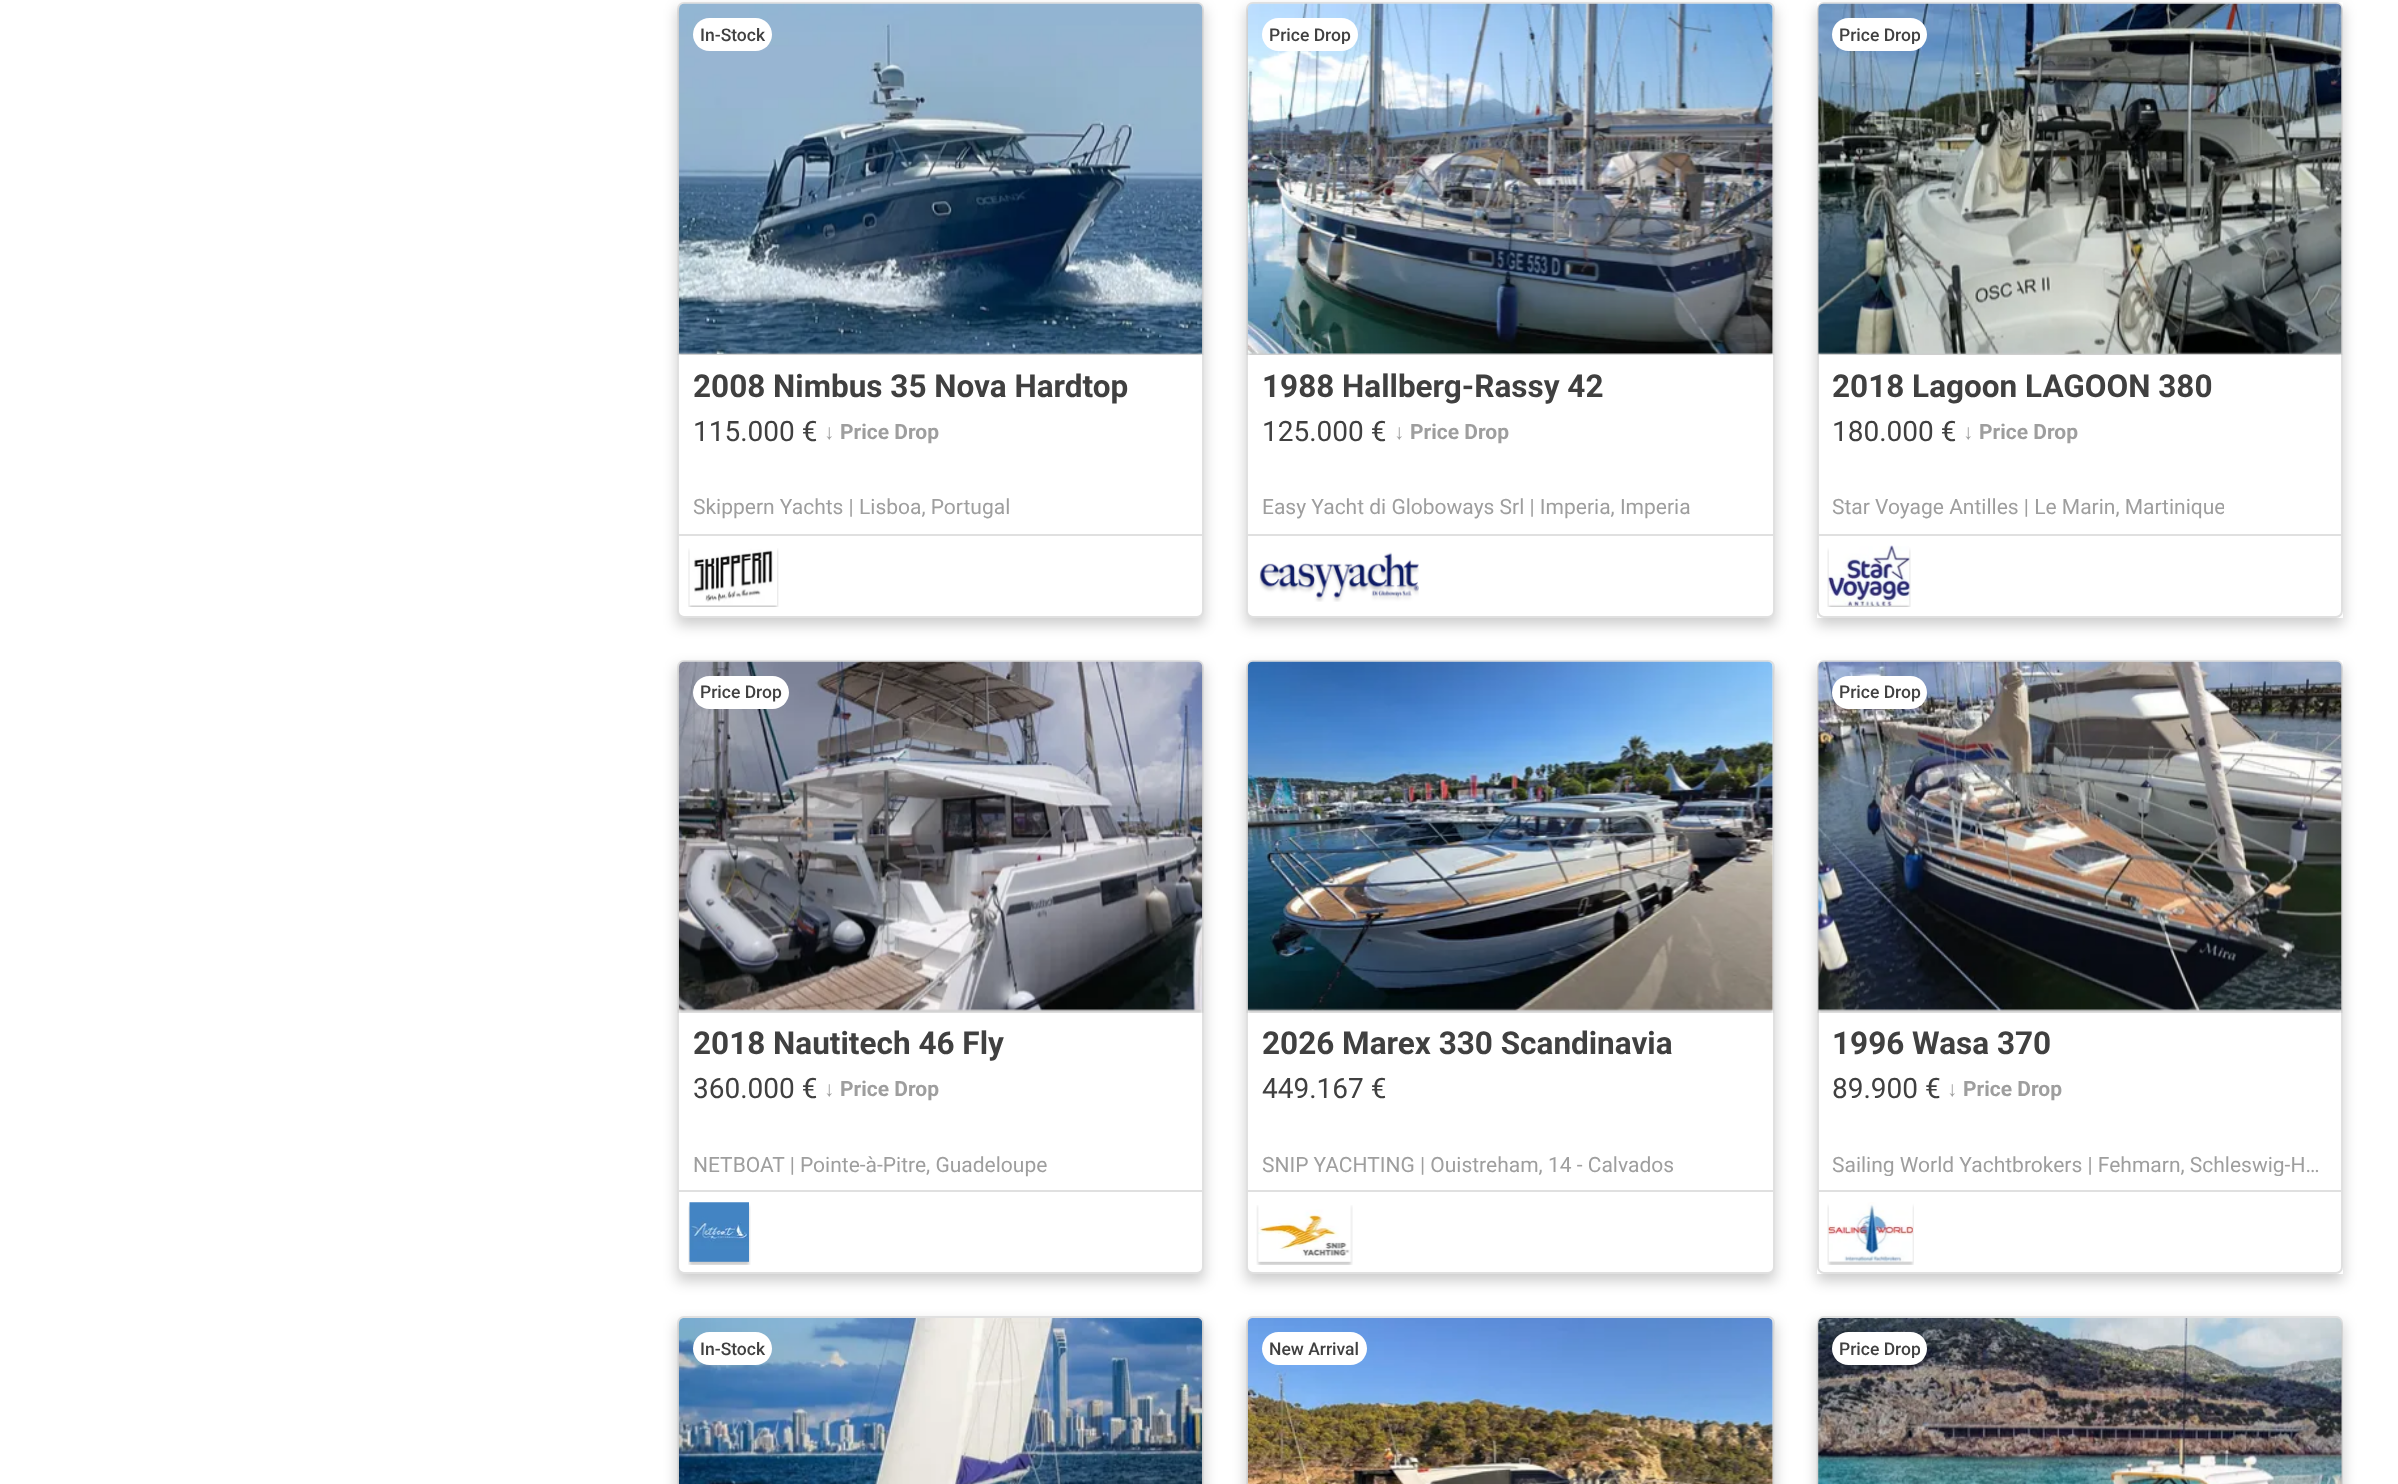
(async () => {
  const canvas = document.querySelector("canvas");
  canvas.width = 2398;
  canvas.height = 1484;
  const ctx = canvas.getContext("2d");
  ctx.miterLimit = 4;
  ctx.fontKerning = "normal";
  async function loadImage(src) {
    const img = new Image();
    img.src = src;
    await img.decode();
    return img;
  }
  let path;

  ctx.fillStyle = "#ffffff";
  ctx.fillRect(0, 0, 2398, 1484);
  ctx.fillStyle = "rgba(0, 0, 0, 0.2)";
  ctx.filter = "blur(7px)";
  ctx.beginPath();
  ctx.rect(677, 9, 527, 616);
  ctx.fill();
  ctx.filter = "none";
  ctx.fillStyle = "#ffffff";
  ctx.beginPath();
  ctx.roundRect(678, 3, 525, 614, 6);
  ctx.fill();
  ctx.strokeStyle = "#e0e0e0";
  ctx.lineWidth = 2;
  ctx.stroke();
  ctx.drawImage(await loadImage("img/1.png"), 677, 3, 527, 352);
  ctx.beginPath();
  ctx.roundRect(693, 18, 79, 33, 16.5);
  ctx.fill();
  ctx.fillStyle = "#e0e0e0";
  ctx.fillRect(679, 534, 523, 2);
  ctx.drawImage(await loadImage("img/2.png"), 688, 548, 91, 59);
  ctx.fillStyle = "rgba(0, 0, 0, 0.2)";
  ctx.filter = "blur(7px)";
  ctx.beginPath();
  ctx.rect(1246, 9, 529, 616);
  ctx.fill();
  ctx.filter = "none";
  ctx.fillStyle = "#ffffff";
  ctx.beginPath();
  ctx.roundRect(1247, 3, 527, 614, 6);
  ctx.fill();
  ctx.stroke();
  ctx.drawImage(await loadImage("img/3.png"), 1246, 3, 528, 352);
  ctx.beginPath();
  ctx.roundRect(1262, 18, 96, 33, 16.5);
  ctx.fill();
  ctx.fillStyle = "#e0e0e0";
  ctx.fillRect(1248, 534, 525, 2);
  ctx.drawImage(await loadImage("img/4.png"), 1259, 552, 160, 50);
  ctx.save();
  path = new Path2D("M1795 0H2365V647H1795ZM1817 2H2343V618H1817Z");
  ctx.clip(path, "evenodd");
  ctx.fillStyle = "rgba(0, 0, 0, 0.2)";
  ctx.filter = "blur(7px)";
  ctx.beginPath();
  ctx.rect(1817, 9, 526, 616);
  ctx.fill();
  ctx.filter = "none";
  ctx.restore();
  ctx.fillStyle = "#ffffff";
  ctx.beginPath();
  ctx.roundRect(1818, 3, 524, 614, 6);
  ctx.fill();
  ctx.stroke();
  ctx.drawImage(await loadImage("img/5.png"), 1817, 3, 526, 352);
  ctx.beginPath();
  ctx.roundRect(1832, 18, 95, 33, 16.5);
  ctx.fill();
  ctx.fillStyle = "#e0e0e0";
  ctx.fillRect(1818, 534, 524, 2);
  ctx.drawImage(await loadImage("img/6.png"), 1827, 545, 84, 62);
  ctx.fillStyle = "rgba(0, 0, 0, 0.2)";
  ctx.filter = "blur(7px)";
  ctx.beginPath();
  ctx.rect(677, 667, 527, 614);
  ctx.fill();
  ctx.filter = "none";
  ctx.fillStyle = "#ffffff";
  ctx.beginPath();
  ctx.roundRect(678, 661, 525, 612, 6);
  ctx.fill();
  ctx.stroke();
  ctx.drawImage(await loadImage("img/7.png"), 677, 661, 527, 352);
  ctx.beginPath();
  ctx.roundRect(693, 676, 96, 33, 16.5);
  ctx.fill();
  ctx.fillStyle = "#e0e0e0";
  ctx.fillRect(679, 1190, 523, 2);
  ctx.drawImage(await loadImage("img/8.png"), 688, 1202, 63, 63);
  ctx.fillStyle = "rgba(0, 0, 0, 0.2)";
  ctx.filter = "blur(7px)";
  ctx.beginPath();
  ctx.rect(1246, 667, 529, 614);
  ctx.fill();
  ctx.filter = "none";
  ctx.fillStyle = "#ffffff";
  ctx.beginPath();
  ctx.roundRect(1247, 661, 527, 612, 6);
  ctx.fill();
  ctx.stroke();
  ctx.drawImage(await loadImage("img/9.png"), 1246, 661, 528, 352);
  ctx.fillStyle = "#e0e0e0";
  ctx.fillRect(1248, 1190, 525, 2);
  ctx.drawImage(await loadImage("img/10.png"), 1256, 1205, 97, 60);
  ctx.save();
  path = new Path2D("M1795 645H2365V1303H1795ZM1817 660H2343V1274H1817Z");
  ctx.clip(path, "evenodd");
  ctx.fillStyle = "rgba(0, 0, 0, 0.2)";
  ctx.filter = "blur(7px)";
  ctx.beginPath();
  ctx.rect(1817, 667, 526, 614);
  ctx.fill();
  ctx.filter = "none";
  ctx.restore();
  ctx.beginPath();
  ctx.roundRect(1818, 661, 524, 612, 6);
  ctx.stroke();
  ctx.drawImage(await loadImage("img/11.png"), 1817, 661, 526, 352);
  ctx.fillStyle = "#ffffff";
  ctx.beginPath();
  ctx.roundRect(1832, 676, 95, 33, 16.5);
  ctx.fill();
  ctx.fillStyle = "#e0e0e0";
  ctx.fillRect(1818, 1190, 524, 2);
  ctx.drawImage(await loadImage("img/12.png"), 1827, 1202, 87, 63);
  ctx.fillStyle = "rgba(0, 0, 0, 0.2)";
  ctx.filter = "blur(7px)";
  ctx.beginPath();
  ctx.rect(677, 1323, 527, 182);
  ctx.fill();
  ctx.filter = "none";
  ctx.beginPath();
  ctx.roundRect(678, 1317, 525, 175, 6);
  ctx.stroke();
  ctx.drawImage(await loadImage("img/13.png"), 677, 1318, 527, 166);
  ctx.fillStyle = "#ffffff";
  ctx.beginPath();
  ctx.roundRect(693, 1332, 79, 33, 16.5);
  ctx.fill();
  ctx.fillStyle = "rgba(0, 0, 0, 0.2)";
  ctx.filter = "blur(7px)";
  ctx.beginPath();
  ctx.rect(1246, 1323, 529, 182);
  ctx.fill();
  ctx.filter = "none";
  ctx.fillStyle = "#ffffff";
  ctx.beginPath();
  ctx.roundRect(1247, 1317, 527, 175, 6);
  ctx.fill();
  ctx.stroke();
  ctx.drawImage(await loadImage("img/14.png"), 1246, 1318, 528, 166);
  ctx.beginPath();
  ctx.roundRect(1262, 1332, 105, 33, 16.5);
  ctx.fill();
  ctx.fillStyle = "rgba(0, 0, 0, 0.2)";
  ctx.filter = "blur(7px)";
  ctx.beginPath();
  ctx.rect(1817, 1323, 526, 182);
  ctx.fill();
  ctx.filter = "none";
  ctx.beginPath();
  ctx.roundRect(1818, 1317, 524, 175, 6);
  ctx.stroke();
  ctx.drawImage(await loadImage("img/15.png"), 1816, 1318, 527, 166);
  ctx.fillStyle = "#ffffff";
  ctx.beginPath();
  ctx.roundRect(1832, 1332, 95, 33, 16.5);
  ctx.fill();
  ctx.font = "500 17.5px Roboto";
  ctx.fillStyle = "#404040";
  ctx.fillText("In-Stock", 700, 41);
  ctx.font = "bold 31.5px Roboto";
  ctx.fillText("2008 Nimbus 35 Nova Hardtop", 693, 397);
  ctx.font = "28px Roboto";
  ctx.fillText("115.000 €", 693, 441);
  ctx.font = "bold 21px Liberation Sans";
  ctx.fillStyle = "#9e9e9e";
  ctx.fillText("↓", 824, 439);
  ctx.font = "bold 21px Roboto";
  ctx.fillText("Price Drop", 840, 439);
  ctx.font = "21px Roboto";
  ctx.fillText("Skippern Yachts | Lisboa, Portugal", 693, 514);
  ctx.save();
  ctx.beginPath();
  ctx.rect(1269, 25, 82, 19);
  ctx.clip();
  ctx.font = "500 17.5px Roboto";
  ctx.fillStyle = "#404040";
  ctx.fillText("Price Drop", 1269, 41);
  ctx.restore();
  ctx.font = "bold 31.5px Roboto";
  ctx.fillStyle = "#404040";
  ctx.fillText("1988 Hallberg-Rassy 42", 1262, 397);
  ctx.font = "28px Roboto";
  ctx.fillText("125.000 €", 1262, 441);
  ctx.font = "bold 21px Liberation Sans";
  ctx.fillStyle = "#9e9e9e";
  ctx.fillText("↓", 1394, 439);
  ctx.font = "bold 21px Roboto";
  ctx.fillText("Price Drop", 1410, 439);
  ctx.font = "21px Roboto";
  ctx.fillText("Easy Yacht di Globoways Srl | Imperia, Imperia", 1262, 514);
  ctx.save();
  ctx.beginPath();
  ctx.rect(1839, 25, 81, 19);
  ctx.clip();
  ctx.font = "500 17.5px Roboto";
  ctx.fillStyle = "#404040";
  ctx.fillText("Price Drop", 1839, 41);
  ctx.restore();
  ctx.font = "bold 31.5px Roboto";
  ctx.fillStyle = "#404040";
  ctx.fillText("2018 Lagoon LAGOON 380", 1832, 397);
  ctx.font = "28px Roboto";
  ctx.fillText("180.000 €", 1832, 441);
  ctx.font = "bold 21px Liberation Sans";
  ctx.fillStyle = "#9e9e9e";
  ctx.fillText("↓", 1963, 439);
  ctx.font = "bold 21px Roboto";
  ctx.fillText("Price Drop", 1979, 439);
  ctx.save();
  ctx.beginPath();
  ctx.rect(1832, 495, 392, 25);
  ctx.clip();
  ctx.font = "21px Roboto";
  ctx.fillText("Star Voyage Antilles | Le Marin, Martinique", 1832, 514);
  ctx.restore();
  ctx.font = "500 17.5px Roboto";
  ctx.fillStyle = "#404040";
  ctx.fillText("Price Drop", 700, 698);
  ctx.font = "bold 31.5px Roboto";
  ctx.fillText("2018 Nautitech 46 Fly", 693, 1054);
  ctx.font = "28px Roboto";
  ctx.fillText("360.000 €", 693, 1098);
  ctx.font = "bold 21px Liberation Sans";
  ctx.fillStyle = "#9e9e9e";
  ctx.fillText("↓", 824, 1096);
  ctx.font = "bold 21px Roboto";
  ctx.fillText("Price Drop", 840, 1096);
  ctx.font = "21px Roboto";
  ctx.fillText("NETBOAT | Pointe-à-Pitre, Guadeloupe", 693, 1172);
  ctx.font = "bold 31.5px Roboto";
  ctx.fillStyle = "#404040";
  ctx.fillText("2026 Marex 330 Scandinavia", 1262, 1054);
  ctx.font = "28px Roboto";
  ctx.fillText("449.167 €", 1262, 1098);
  ctx.font = "21px Roboto";
  ctx.fillStyle = "#9e9e9e";
  ctx.fillText("SNIP YACHTING | Ouistreham, 14 - Calvados", 1262, 1172);
  ctx.font = "500 17.5px Roboto";
  ctx.fillStyle = "#404040";
  ctx.fillText("Price Drop", 1839, 698);
  ctx.font = "bold 31.5px Roboto";
  ctx.fillText("1996 Wasa 370", 1832, 1054);
  ctx.font = "28px Roboto";
  ctx.fillText("89.900 €", 1832, 1098);
  ctx.font = "bold 21px Liberation Sans";
  ctx.fillStyle = "#9e9e9e";
  ctx.fillText("↓", 1947, 1096);
  ctx.font = "bold 21px Roboto";
  ctx.fillText("Price Drop", 1963, 1096);
  ctx.save();
  ctx.beginPath();
  ctx.rect(1832, 1152, 496, 24);
  ctx.clip();
  ctx.font = "21px Roboto";
  ctx.fillText("Sailing World Yachtbrokers | Fehmarn, Schleswig-H…", 1832, 1172);
  ctx.restore();
  ctx.font = "500 17.5px Roboto";
  ctx.fillStyle = "#404040";
  ctx.fillText("In-Stock", 700, 1355);
  ctx.fillText("New Arrival", 1269, 1355);
  ctx.save();
  ctx.beginPath();
  ctx.rect(1839, 1339, 81, 19);
  ctx.clip();
  ctx.fillText("Price Drop", 1839, 1355);
  ctx.restore();
})();
